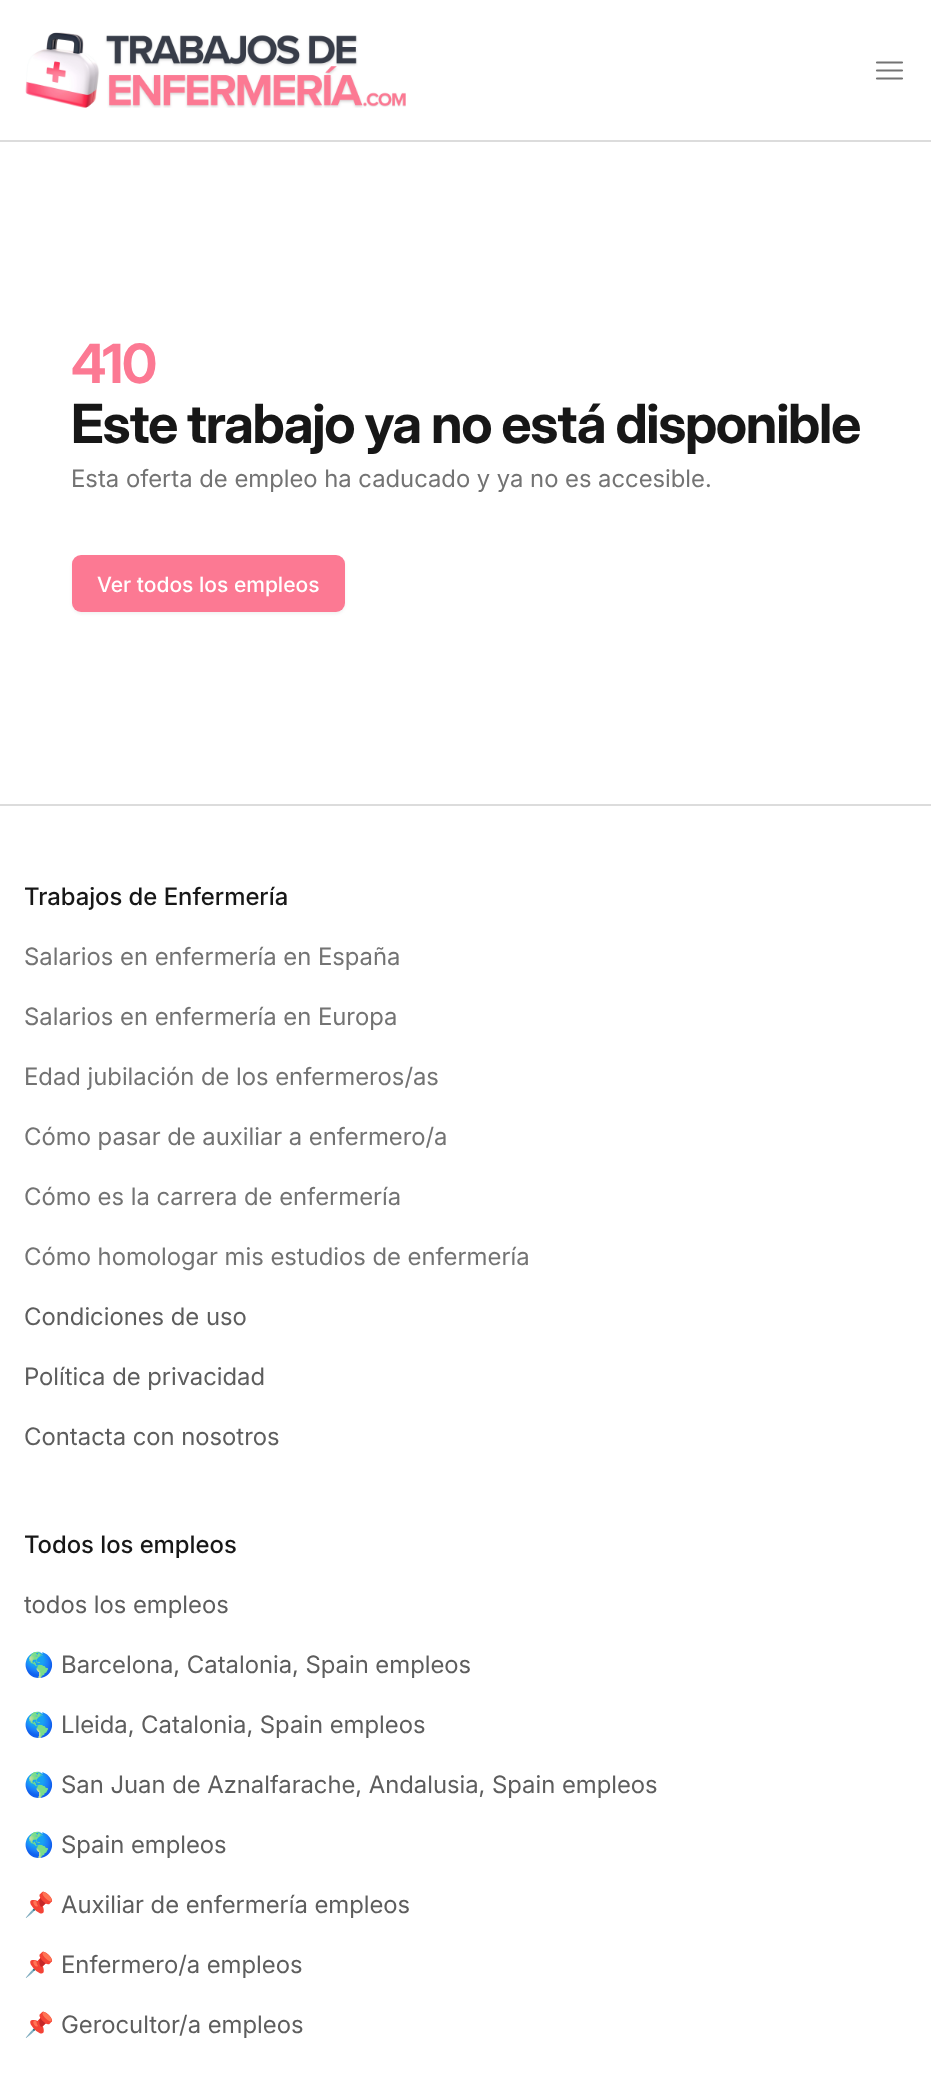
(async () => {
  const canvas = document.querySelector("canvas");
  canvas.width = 931;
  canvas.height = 2099;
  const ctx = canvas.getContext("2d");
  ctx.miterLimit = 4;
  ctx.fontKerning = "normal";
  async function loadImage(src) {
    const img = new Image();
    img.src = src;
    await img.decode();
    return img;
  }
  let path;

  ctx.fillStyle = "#ffffff";
  ctx.fillRect(0, 0, 931, 2099);
  ctx.fillStyle = "#dcdcdc";
  ctx.fillRect(0, 140, 931, 2);
  ctx.drawImage(await loadImage("img/1.png"), 25, 32, 381, 76);
  path = new Path2D("M877 62.5H902M877 70.5H902M877 78.5H902");
  ctx.strokeStyle = "#737373";
  ctx.lineWidth = 2.2;
  ctx.lineCap = "round";
  ctx.lineJoin = "round";
  ctx.stroke(path);
  ctx.fillStyle = "rgba(0, 0, 0, 0.05)";
  ctx.filter = "blur(1.5px)";
  ctx.beginPath();
  ctx.roundRect(72, 557, 273, 57, 9);
  ctx.fill();
  ctx.filter = "none";
  ctx.fillStyle = "#fc7993";
  ctx.beginPath();
  ctx.roundRect(72, 555, 273, 57, 9);
  ctx.fill();
  ctx.fillStyle = "#dcdcdc";
  ctx.fillRect(0, 804, 931, 2);
  ctx.letterSpacing = "-1.35px";
  ctx.font = "bold 54px Inter";
  ctx.fillStyle = "#fc7993";
  ctx.fillText("410", 71, 383);
  ctx.fillStyle = "#171717";
  ctx.fillText("Este trabajo ya no está disponible", 71, 443);
  ctx.letterSpacing = "0px";
  ctx.font = "24px Inter";
  ctx.fillStyle = "#737373";
  ctx.fillText("Esta oferta de empleo ha caducado y ya no es accesible.", 71, 487);
  ctx.font = "500 21px Inter";
  ctx.fillStyle = "#ffffff";
  ctx.fillText("Ver todos los empleos", 97, 592);
  ctx.font = "500 24px 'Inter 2'";
  ctx.fillStyle = "#171717";
  ctx.fillText("Trabajos de Enfermería", 24, 905);
  ctx.font = "24px Inter";
  ctx.fillStyle = "#737373";
  for (const [text, x, y] of [
    ["Salarios en enfermería en España", 24, 965],
    ["Salarios en enfermería en Europa", 24, 1025],
    ["Edad jubilación de los enfermeros/as", 24, 1085],
    ["Cómo pasar de auxiliar a enfermero/a", 24, 1145],
    ["Cómo es la carrera de enfermería", 24, 1205],
    ["Cómo homologar mis estudios de enfermería", 24, 1265],
  ]) {
    ctx.fillText(text, x, y);
  }
  ctx.fillStyle = "#5d5d5d";
  for (const [text, x, y] of [
    ["Condiciones de uso", 24, 1325],
    ["Política de privacidad", 24, 1385],
    ["Contacta con nosotros", 24, 1445],
  ]) {
    ctx.fillText(text, x, y);
  }
  ctx.font = "500 24px 'Inter 2'";
  ctx.fillStyle = "#171717";
  ctx.fillText("Todos los empleos", 24, 1553);
  ctx.font = "24px Inter";
  ctx.fillStyle = "#5d5d5d";
  ctx.fillText("todos los empleos", 24, 1613);
  ctx.font = "24px Noto Color Emoji";
  ctx.fillText("🌎", 24, 1673);
  ctx.font = "24px Inter";
  ctx.fillText("Barcelona, Catalonia, Spain empleos", 61, 1673);
  ctx.font = "24px Noto Color Emoji";
  ctx.fillText("🌎", 24, 1733);
  ctx.font = "24px Inter";
  ctx.fillText("Lleida, Catalonia, Spain empleos", 61, 1733);
  ctx.font = "24px Noto Color Emoji";
  ctx.fillText("🌎", 24, 1793);
  ctx.font = "24px Inter";
  ctx.fillText("San Juan de Aznalfarache, Andalusia, Spain empleos", 61, 1793);
  ctx.font = "24px Noto Color Emoji";
  ctx.fillText("🌎", 24, 1853);
  ctx.font = "24px Inter";
  ctx.fillText("Spain empleos", 61, 1853);
  ctx.font = "24px Noto Color Emoji";
  ctx.fillText("📌", 24, 1913);
  ctx.font = "24px Inter";
  ctx.fillText("Auxiliar de enfermería empleos", 61, 1913);
  ctx.font = "24px Noto Color Emoji";
  ctx.fillText("📌", 24, 1973);
  ctx.font = "24px Inter";
  ctx.fillText("Enfermero/a empleos", 61, 1973);
  ctx.font = "24px Noto Color Emoji";
  ctx.fillText("📌", 24, 2033);
  ctx.font = "24px Inter";
  ctx.fillText("Gerocultor/a empleos", 61, 2033);
})();
